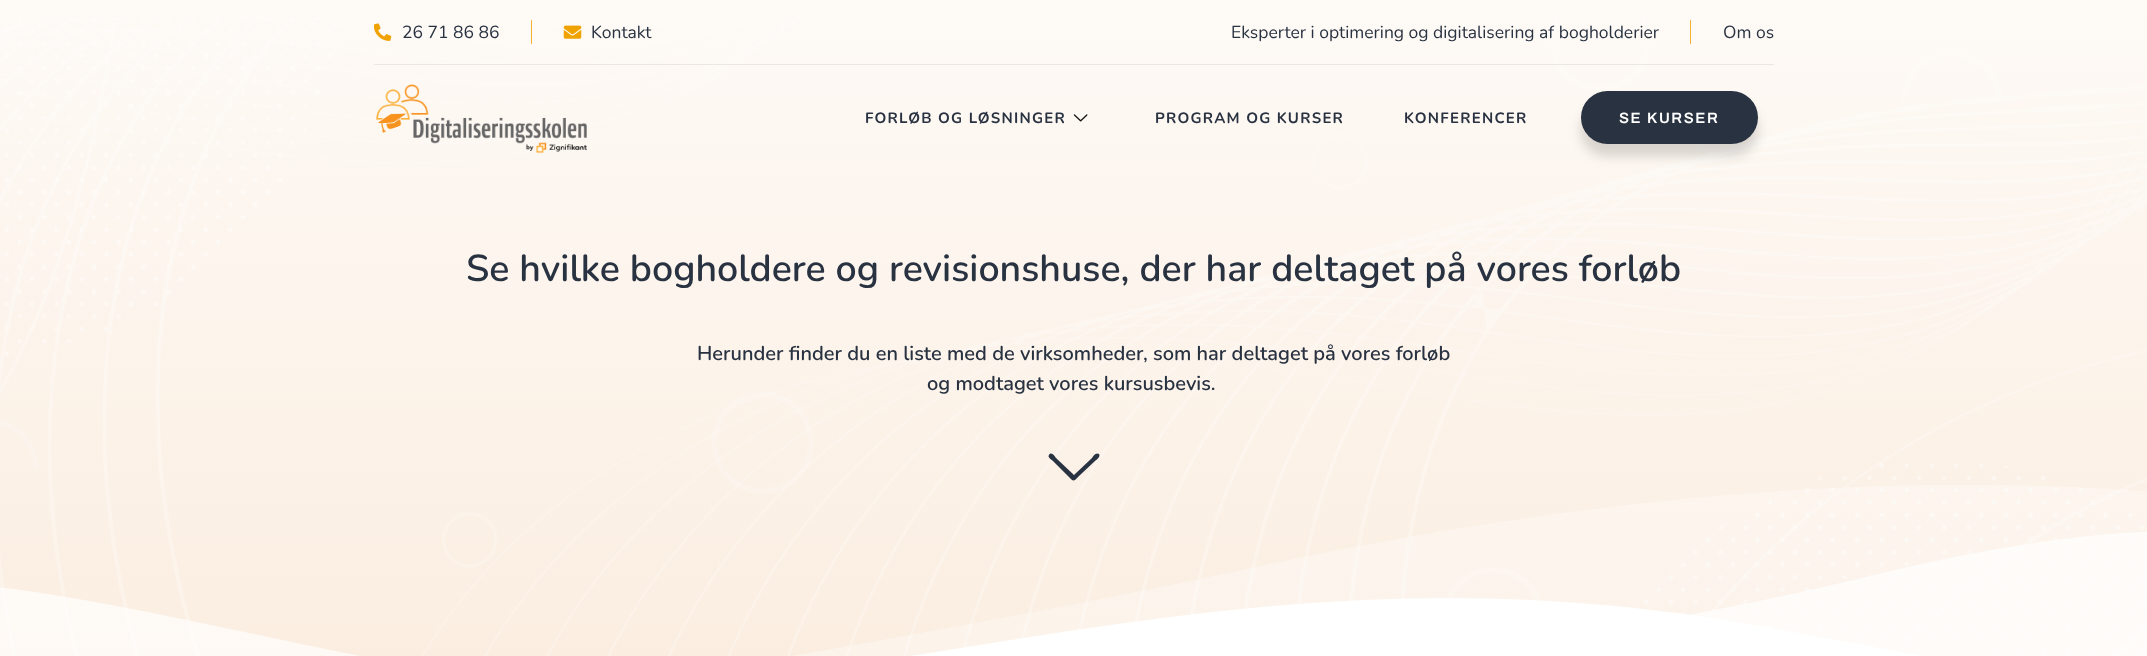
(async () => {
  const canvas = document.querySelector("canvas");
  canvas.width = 2147;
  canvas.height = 656;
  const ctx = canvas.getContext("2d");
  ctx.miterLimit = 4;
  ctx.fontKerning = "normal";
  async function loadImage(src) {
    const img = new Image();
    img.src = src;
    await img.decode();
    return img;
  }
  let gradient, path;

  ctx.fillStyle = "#ffffff";
  ctx.fillRect(0, 0, 2147, 656);
  gradient = ctx.createLinearGradient(1074, 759, 1074, -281);
  gradient.addColorStop(0.1, "#fbeee1");
  gradient.addColorStop(1, "#ffffff");
  ctx.fillStyle = gradient;
  ctx.fillRect(0, 0, 2147, 656);
  ctx.drawImage(await loadImage("img/5.png"), 0, 17, 2147, 639);
  ctx.fillStyle = "rgba(2, 1, 1, 0.07)";
  ctx.fillRect(374, 64, 1400, 1);
  ctx.drawImage(await loadImage("img/1.png"), 374, 23, 18, 18);
  ctx.fillStyle = "rgba(240, 162, 2, 0.82)";
  ctx.fillRect(531, 20, 1, 24);
  ctx.drawImage(await loadImage("img/2.png"), 563, 25, 19, 14);
  ctx.fillStyle = "#f3b22e";
  ctx.fillRect(1690, 20, 1, 24);
  ctx.drawImage(await loadImage("img/3.png"), 376, 84, 211, 70);
  ctx.drawImage(await loadImage("img/4.png"), 1073, 114, 15, 8);
  ctx.fillStyle = "rgba(0, 0, 0, 0.15)";
  ctx.filter = "blur(6px)";
  ctx.beginPath();
  ctx.roundRect(1581, 104, 177, 52, 26);
  ctx.fill();
  ctx.filter = "none";
  ctx.fillStyle = "#293241";
  ctx.beginPath();
  ctx.roundRect(1581, 91, 177, 53, 26.5);
  ctx.fill();
  path = new Path2D("M1099 454C1096 452 1093 456 1092 458L1074 475L1056 458C1055 456 1051 451 1049 455C1047 457 1052 460 1053 461L1068 476C1074 482 1073 482 1079 476L1095 461C1096 460 1101 457 1099 454Z");
  ctx.fill(path);
  ctx.drawImage(await loadImage("img/6.png"), 0, 485, 2147, 171);
  ctx.font = "17.5px Nunito";
  for (const [text, x, y] of [
    ["26 71 86 86", 402, 38],
    ["Kontakt", 591, 38],
    ["Eksperter i optimering og digitalisering af bogholderier", 1231, 38],
    ["Om os", 1723, 38],
  ]) {
    ctx.fillText(text, x, y);
  }
  ctx.letterSpacing = "1.25px";
  ctx.font = "bold 15px Nunito";
  for (const [text, x, y] of [
    ["FORLØB OG LØSNINGER", 865, 123],
    ["PROGRAM OG KURSER", 1155, 123],
    ["KONFERENCER", 1404, 123],
  ]) {
    ctx.fillText(text, x, y);
  }
  ctx.letterSpacing = "1.6px";
  ctx.font = "600 15px Archivo";
  ctx.fillStyle = "#ffffff";
  ctx.fillText("SE KURSER", 1619, 123);
  ctx.letterSpacing = "0px";
  ctx.font = "600 37.5px Nunito";
  ctx.fillStyle = "#293241";
  ctx.fillText("Se hvilke bogholdere og revisionshuse, der har deltaget på vores forløb", 466, 281);
  ctx.font = "600 20px Nunito";
  ctx.fillText("Herunder finder du en liste med de virksomheder, som har deltaget på vores forløb", 697, 360);
  ctx.fillText("og modtaget vores kursusbevis.", 927, 390);
})();
